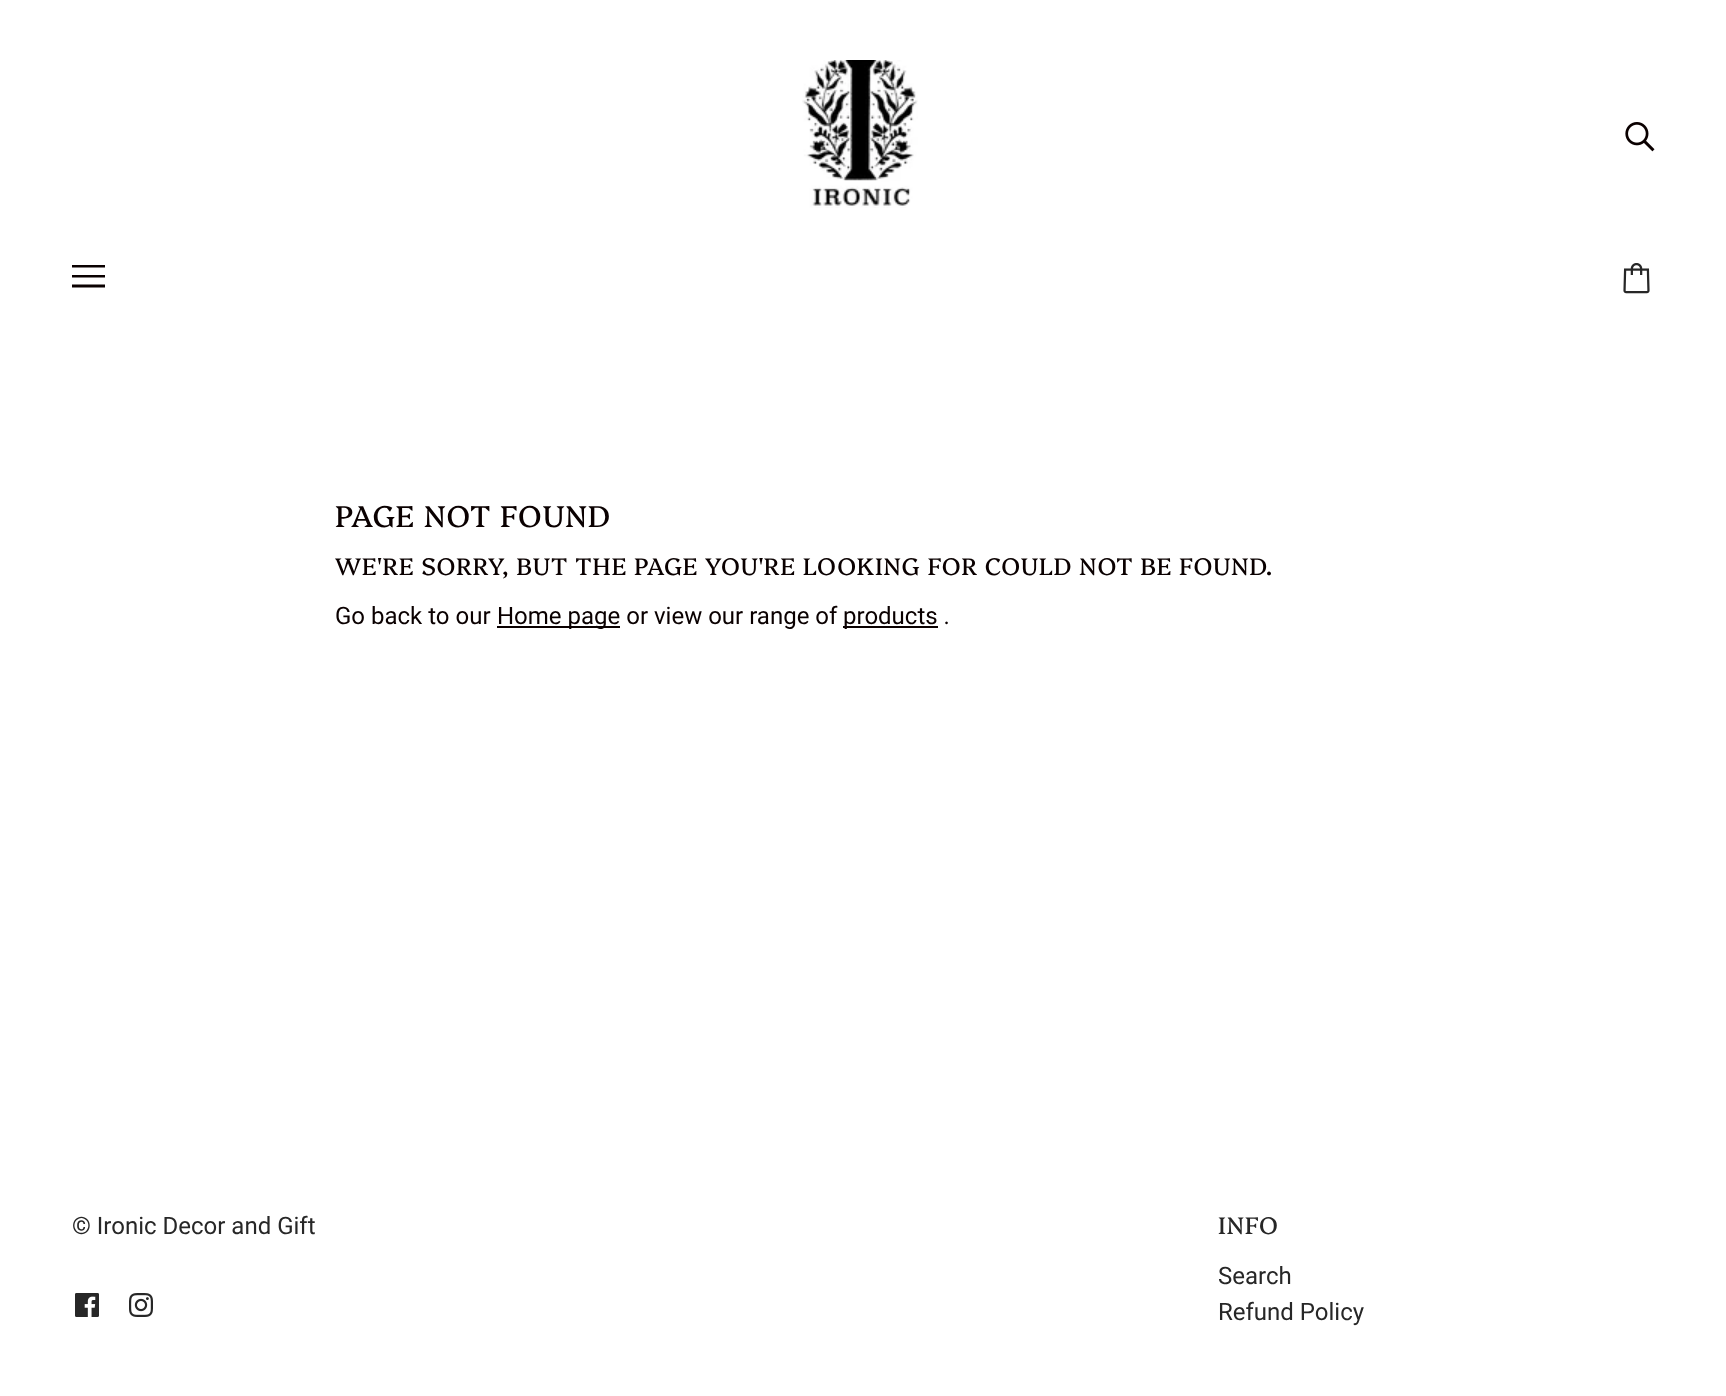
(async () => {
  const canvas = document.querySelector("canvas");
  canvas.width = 1726;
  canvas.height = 1396;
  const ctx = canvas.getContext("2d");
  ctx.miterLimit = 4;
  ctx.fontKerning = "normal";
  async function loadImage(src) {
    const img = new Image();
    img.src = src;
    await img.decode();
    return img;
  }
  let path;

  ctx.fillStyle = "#ffffff";
  ctx.fillRect(0, 0, 1726, 1396);
  ctx.drawImage(await loadImage("img/1.png"), 802, 60, 116, 148);
  ctx.drawImage(await loadImage("img/2.png"), 1625, 122, 30, 30);
  ctx.fillStyle = "#0a0000";
  path = new Path2D("M72 267.5V265H105V267.5ZM72 277.5V275H105V277.5ZM72 287.5V284.5H105V287.5Z");
  ctx.fill(path);
  ctx.drawImage(await loadImage("img/3.png"), 1623, 263, 27, 31);
  ctx.fillRect(497, 626, 123, 2);
  ctx.fillRect(843, 626, 95, 2);
  ctx.drawImage(await loadImage("img/4.png"), 75, 1293, 24, 24);
  ctx.drawImage(await loadImage("img/5.png"), 129, 1293, 24, 24);
  ctx.letterSpacing = "0.75px";
  ctx.font = "30px Platypi";
  ctx.fillText("PAGE NOT FOUND", 335, 527);
  ctx.letterSpacing = "0.6px";
  ctx.font = "24px Platypi";
  ctx.fillText("WE'RE SORRY, BUT THE PAGE YOU'RE LOOKING FOR COULD NOT BE FOUND.", 335, 575);
  ctx.letterSpacing = "0px";
  ctx.font = "24px Roboto";
  for (const [text, x, y] of [
    ["Go back to our", 335, 624],
    ["Home page or view our range of", 497, 624],
    ["products .", 843, 624],
  ]) {
    ctx.fillText(text, x, y);
  }
  ctx.fillStyle = "#272727";
  ctx.fillText("© Ironic Decor and Gift", 72, 1234);
  ctx.letterSpacing = "0.6px";
  ctx.font = "24px Platypi";
  ctx.fillText("INFO", 1218, 1234);
  ctx.letterSpacing = "0px";
  ctx.font = "24px Roboto";
  ctx.fillText("Search", 1218, 1284);
  ctx.fillText("Refund Policy", 1218, 1320);
})();
